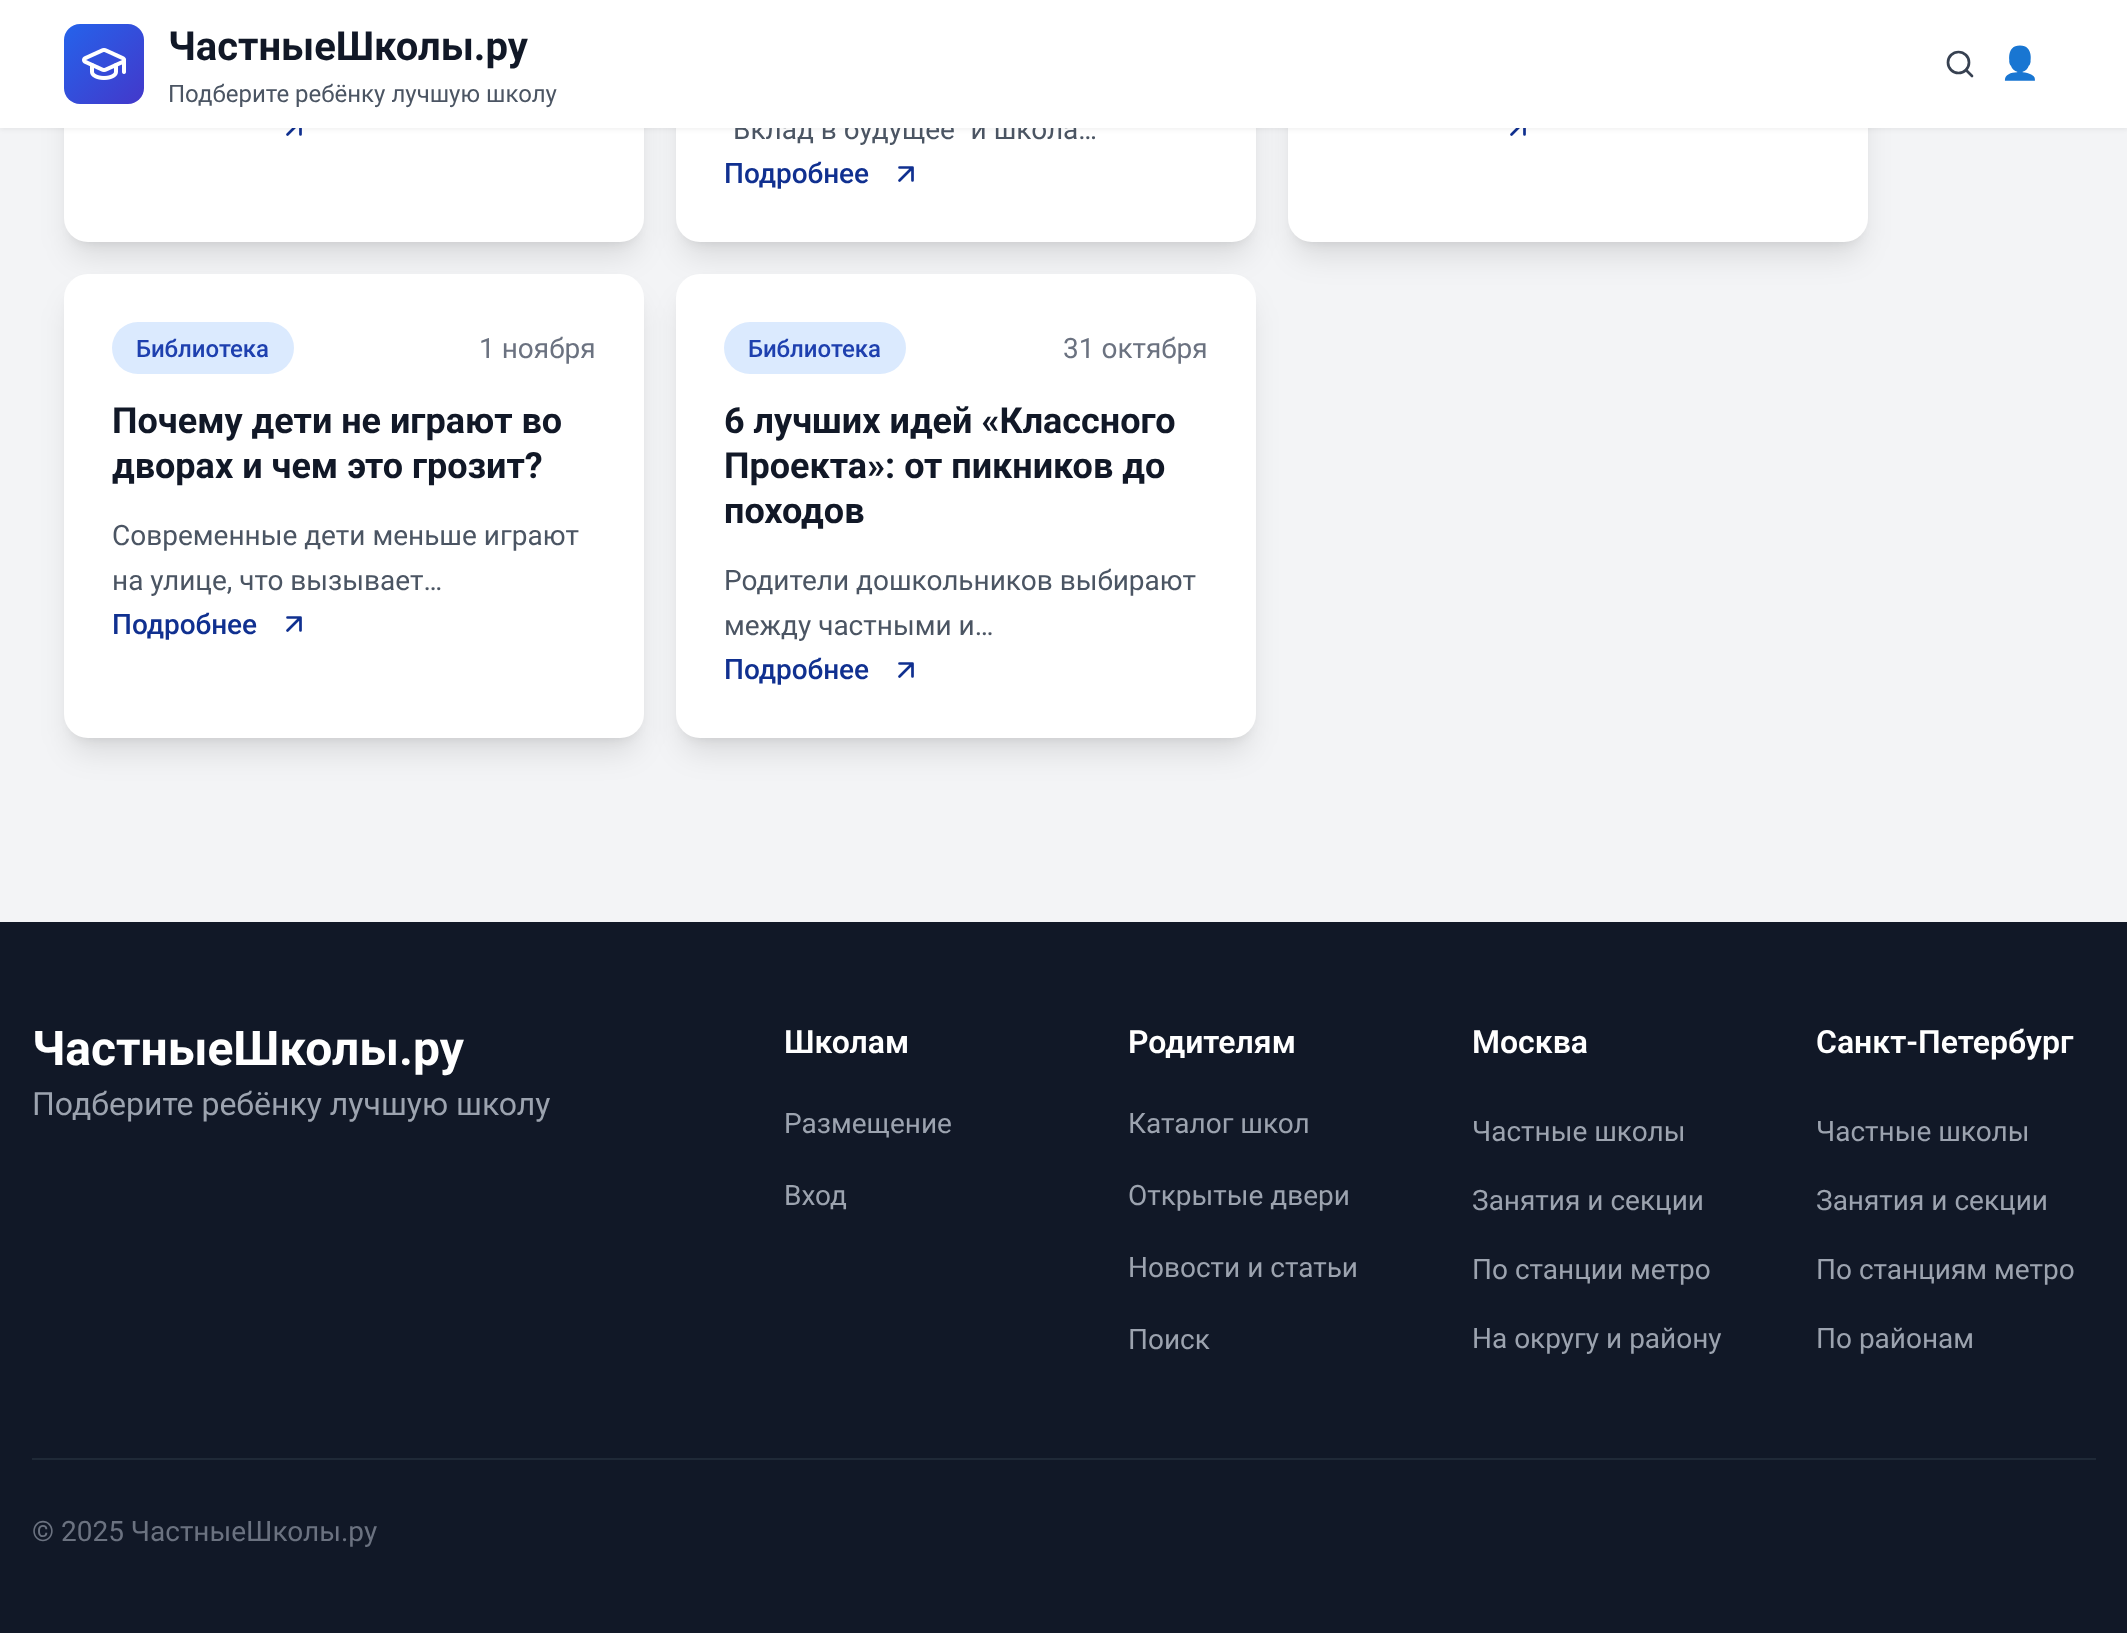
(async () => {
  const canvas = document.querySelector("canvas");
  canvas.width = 2127;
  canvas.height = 1633;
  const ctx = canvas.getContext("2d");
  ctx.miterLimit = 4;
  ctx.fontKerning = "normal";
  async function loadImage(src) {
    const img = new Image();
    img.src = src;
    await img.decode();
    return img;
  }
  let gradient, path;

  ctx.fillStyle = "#f3f4f6";
  ctx.fillRect(0, 0, 2127, 1633);
  ctx.fillStyle = "rgba(0, 0, 0, 0.1)";
  ctx.filter = "blur(6px)";
  ctx.beginPath();
  ctx.roundRect(72, -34, 564, 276, 16);
  ctx.fill();
  ctx.filter = "none";
  ctx.filter = "blur(15px)";
  ctx.beginPath();
  ctx.roundRect(70, -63, 568, 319, 18);
  ctx.fill();
  ctx.filter = "none";
  ctx.fillStyle = "#ffffff";
  ctx.beginPath();
  ctx.roundRect(64, -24, 580, 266, 24);
  ctx.fill();
  path = new Path2D("M287.5 134.5L299.5 122.5M300.5 134.5V121.5H287.5");
  ctx.strokeStyle = "#103090";
  ctx.lineWidth = 2.7;
  ctx.lineCap = "round";
  ctx.lineJoin = "round";
  ctx.stroke(path);
  ctx.fillStyle = "rgba(0, 0, 0, 0.1)";
  ctx.filter = "blur(6px)";
  ctx.beginPath();
  ctx.roundRect(684, -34, 564, 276, 16);
  ctx.fill();
  ctx.filter = "none";
  ctx.filter = "blur(15px)";
  ctx.beginPath();
  ctx.roundRect(682, -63, 568, 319, 18);
  ctx.fill();
  ctx.filter = "none";
  ctx.fillStyle = "#ffffff";
  ctx.beginPath();
  ctx.roundRect(676, -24, 580, 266, 24);
  ctx.fill();
  ctx.fillStyle = "rgba(0, 0, 0, 0.1)";
  ctx.filter = "blur(6px)";
  ctx.beginPath();
  ctx.roundRect(1296, -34, 564, 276, 16);
  ctx.fill();
  ctx.filter = "none";
  ctx.filter = "blur(15px)";
  ctx.beginPath();
  ctx.roundRect(1294, -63, 568, 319, 18);
  ctx.fill();
  ctx.filter = "none";
  ctx.fillStyle = "#ffffff";
  ctx.beginPath();
  ctx.roundRect(1288, -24, 580, 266, 24);
  ctx.fill();
  path = new Path2D("M1511.5 134.5L1523.5 122.5M1524.5 134.5V121.5H1511.5");
  ctx.stroke(path);
  ctx.fillStyle = "rgba(0, 0, 0, 0.05)";
  ctx.filter = "blur(2px)";
  ctx.beginPath();
  ctx.rect(0, 2, 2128, 128);
  ctx.fill();
  ctx.filter = "none";
  path = new Path2D("M899.5 180.5L911.5 168.5M912.5 180.5V167.5H899.5");
  ctx.stroke(path);
  ctx.fillStyle = "rgba(0, 0, 0, 0.1)";
  ctx.filter = "blur(6px)";
  ctx.beginPath();
  ctx.roundRect(72, 290, 564, 448, 16);
  ctx.fill();
  ctx.filter = "none";
  ctx.filter = "blur(15px)";
  ctx.beginPath();
  ctx.roundRect(70, 300, 568, 452, 18);
  ctx.fill();
  ctx.filter = "none";
  ctx.fillStyle = "#ffffff";
  ctx.beginPath();
  ctx.roundRect(64, 274, 580, 464, 24);
  ctx.fill();
  ctx.fillStyle = "#dbeafe";
  ctx.beginPath();
  ctx.roundRect(112, 322, 182, 52, 26);
  ctx.fill();
  path = new Path2D("M287.5 630.5L299.5 618.5M300.5 630.5V617.5H287.5");
  ctx.stroke(path);
  ctx.fillStyle = "rgba(0, 0, 0, 0.1)";
  ctx.filter = "blur(6px)";
  ctx.beginPath();
  ctx.roundRect(684, 290, 564, 448, 16);
  ctx.fill();
  ctx.filter = "none";
  ctx.filter = "blur(15px)";
  ctx.beginPath();
  ctx.roundRect(682, 300, 568, 452, 18);
  ctx.fill();
  ctx.filter = "none";
  ctx.fillStyle = "#ffffff";
  ctx.beginPath();
  ctx.roundRect(676, 274, 580, 464, 24);
  ctx.fill();
  ctx.fillStyle = "#dbeafe";
  ctx.beginPath();
  ctx.roundRect(724, 322, 182, 52, 26);
  ctx.fill();
  path = new Path2D("M899.5 676.5L911.5 664.5M912.5 676.5V663.5H899.5");
  ctx.stroke(path);
  ctx.fillStyle = "#111827";
  ctx.fillRect(0, 922, 2127, 711);
  ctx.fillStyle = "#1f2937";
  ctx.fillRect(32, 1458, 2064, 2);
  ctx.font = "28px Roboto";
  ctx.fillStyle = "#4b5563";
  ctx.fillText("Вклад в будущее` и школа…", 733, 139);
  ctx.fillStyle = "#ffffff";
  ctx.fillRect(0, 0, 2127, 128);
  ctx.beginPath();
  ctx.arc(1958.5, 62.5, 10.5, 0, Math.PI * 2);
  ctx.strokeStyle = "#374151";
  ctx.stroke();
  path = new Path2D("M1972 76L1966 70");
  ctx.stroke(path);
  gradient = ctx.createLinearGradient(64, 24, 144, 104);
  gradient.addColorStop(0, "#2563eb");
  gradient.addColorStop(1, "#4338ca");
  ctx.fillStyle = gradient;
  ctx.beginPath();
  ctx.roundRect(64, 24, 80, 80, 16);
  ctx.fill();
  ctx.drawImage(await loadImage("img/1.png"), 82, 48, 44, 32);
  ctx.font = "32px Noto Color Emoji";
  ctx.fillStyle = "#103090";
  ctx.fillText("👤", 2000, 74);
  ctx.font = "24px Roboto";
  ctx.fillStyle = "#4b5563";
  ctx.fillText("Подберите ребёнку лучшую школу", 168, 102);
  ctx.font = "bold 40px Roboto";
  ctx.fillStyle = "#111827";
  ctx.fillText("ЧастныеШколы.ру", 168, 60);
  ctx.font = "500 28px Roboto";
  ctx.fillStyle = "#103090";
  ctx.fillText("Подробнее", 724, 183);
  ctx.font = "500 24px Roboto";
  ctx.fillStyle = "#1e40af";
  ctx.fillText("Библиотека", 136, 357);
  ctx.font = "28px Roboto";
  ctx.fillStyle = "#6b7280";
  ctx.fillText("1 ноября", 479, 358);
  ctx.font = "bold 36px Roboto";
  ctx.fillStyle = "#111827";
  ctx.fillText("Почему дети не играют во", 112, 433);
  ctx.fillText("дворах и чем это грозит?", 112, 478);
  ctx.font = "28px Roboto";
  ctx.fillStyle = "#4b5563";
  ctx.fillText("Современные дети меньше играют", 112, 545);
  ctx.fillText("на улице, что вызывает…", 112, 590);
  ctx.font = "500 28px Roboto";
  ctx.fillStyle = "#103090";
  ctx.fillText("Подробнее", 112, 634);
  ctx.font = "500 24px Roboto";
  ctx.fillStyle = "#1e40af";
  ctx.fillText("Библиотека", 748, 357);
  ctx.font = "28px Roboto";
  ctx.fillStyle = "#6b7280";
  ctx.fillText("31 октября", 1063, 358);
  ctx.font = "bold 36px Roboto";
  ctx.fillStyle = "#111827";
  for (const [text, x, y] of [
    ["6 лучших идей «Классного", 724, 433],
    ["Проекта»: от пикников до", 724, 478],
    ["походов", 724, 523],
  ]) {
    ctx.fillText(text, x, y);
  }
  ctx.font = "28px Roboto";
  ctx.fillStyle = "#4b5563";
  ctx.fillText("Родители дошкольников выбирают", 724, 590);
  ctx.fillText("между частными и…", 724, 635);
  ctx.font = "500 28px Roboto";
  ctx.fillStyle = "#103090";
  ctx.fillText("Подробнее", 724, 679);
  ctx.font = "bold 48px Roboto";
  ctx.fillStyle = "#ffffff";
  ctx.fillText("ЧастныеШколы.ру", 32, 1065);
  ctx.font = "32px Roboto";
  ctx.fillStyle = "#9ca3af";
  ctx.fillText("Подберите ребёнку лучшую школу", 32, 1115);
  ctx.font = "600 32px Roboto";
  ctx.fillStyle = "#ffffff";
  ctx.fillText("Школам", 784, 1053);
  ctx.font = "28px Roboto";
  ctx.fillStyle = "#9ca3af";
  ctx.fillText("Размещение", 784, 1133);
  ctx.fillText("Вход", 784, 1205);
  ctx.font = "600 32px Roboto";
  ctx.fillStyle = "#ffffff";
  ctx.fillText("Родителям", 1128, 1053);
  ctx.font = "28px Roboto";
  ctx.fillStyle = "#9ca3af";
  for (const [text, x, y] of [
    ["Каталог школ", 1128, 1133],
    ["Открытые двери", 1128, 1205],
    ["Новости и статьи", 1128, 1277],
    ["Поиск", 1128, 1349],
  ]) {
    ctx.fillText(text, x, y);
  }
  ctx.font = "600 32px Roboto";
  ctx.fillStyle = "#ffffff";
  ctx.fillText("Москва", 1472, 1053);
  ctx.font = "28px Roboto";
  ctx.fillStyle = "#9ca3af";
  for (const [text, x, y] of [
    ["Частные школы", 1472, 1141],
    ["Занятия и секции", 1472, 1210],
    ["По станции метро", 1472, 1279],
    ["На округу и району", 1472, 1348],
  ]) {
    ctx.fillText(text, x, y);
  }
  ctx.font = "600 32px Roboto";
  ctx.fillStyle = "#ffffff";
  ctx.fillText("Санкт-Петербург", 1816, 1053);
  ctx.font = "28px Roboto";
  ctx.fillStyle = "#9ca3af";
  for (const [text, x, y] of [
    ["Частные школы", 1816, 1141],
    ["Занятия и секции", 1816, 1210],
    ["По станциям метро", 1816, 1279],
    ["По районам", 1816, 1348],
  ]) {
    ctx.fillText(text, x, y);
  }
  ctx.fillStyle = "#6b7280";
  ctx.fillText("© 2025 ЧастныеШколы.ру", 32, 1541);
})();
